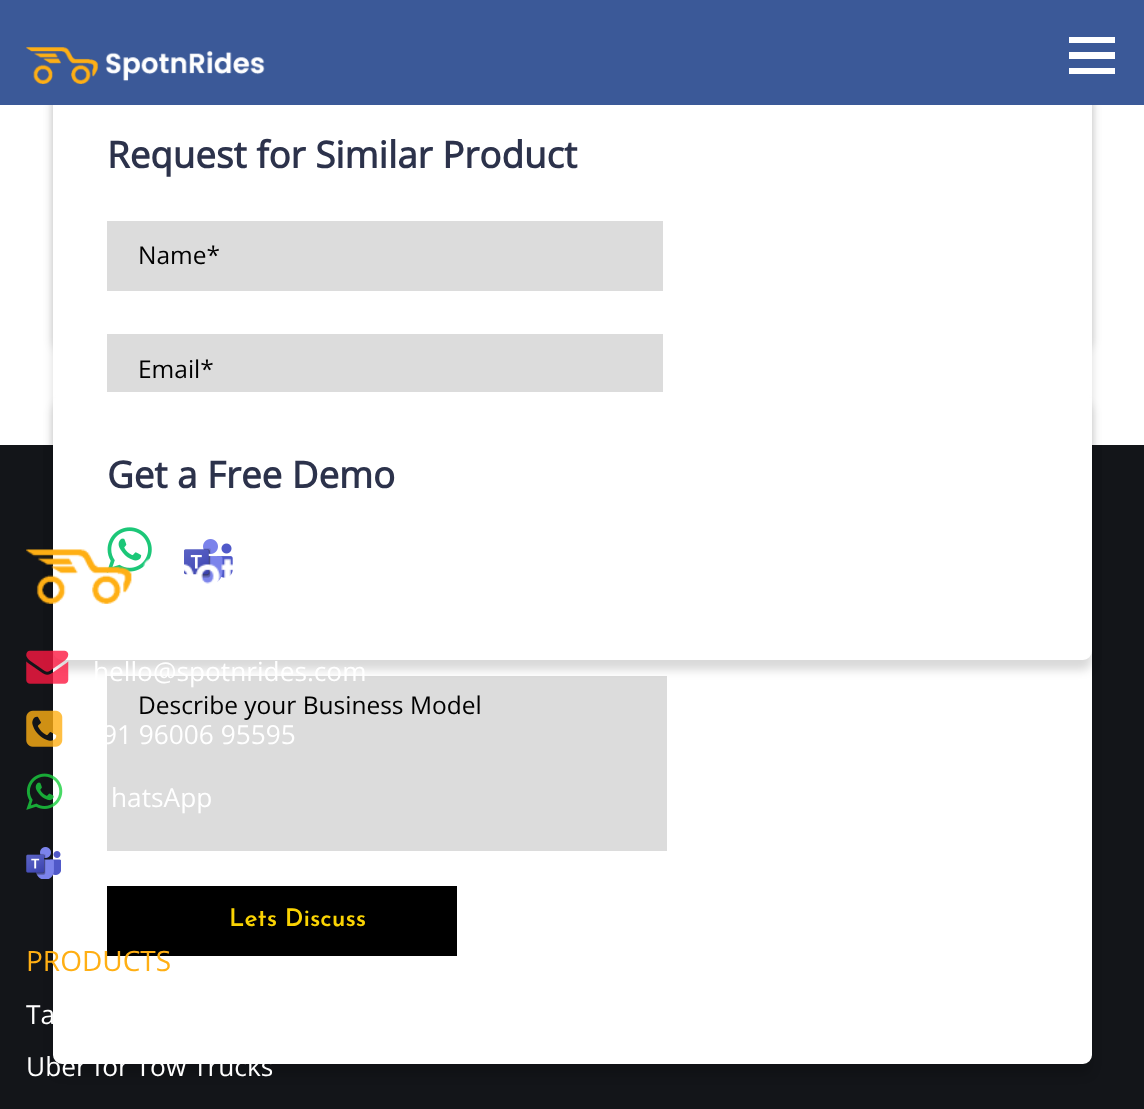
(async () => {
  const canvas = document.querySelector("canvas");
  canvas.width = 1144;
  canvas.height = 1109;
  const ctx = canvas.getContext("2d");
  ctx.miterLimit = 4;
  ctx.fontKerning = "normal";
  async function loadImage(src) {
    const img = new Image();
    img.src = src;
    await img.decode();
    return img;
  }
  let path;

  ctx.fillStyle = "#ffffff";
  ctx.fillRect(0, 0, 1144, 1109);
  ctx.fillStyle = "rgba(1, 1, 1, 0.15)";
  ctx.filter = "blur(5px)";
  ctx.beginPath();
  ctx.roundRect(53, 98, 1039, 252, 9);
  ctx.fill();
  ctx.filter = "none";
  ctx.fillStyle = "#131519";
  ctx.fillRect(0, 445, 1144, 664);
  ctx.fillStyle = "rgba(1, 1, 1, 0.15)";
  ctx.filter = "blur(5px)";
  ctx.beginPath();
  ctx.roundRect(53, 82, 1039, 993, 9);
  ctx.fill();
  ctx.filter = "none";
  ctx.fillStyle = "#ffffff";
  ctx.beginPath();
  ctx.roundRect(54, 73, 1037, 990, 8);
  ctx.fill();
  ctx.strokeStyle = "#ffffff";
  ctx.lineWidth = 2;
  ctx.stroke();
  ctx.fillStyle = "#3b5998";
  ctx.fillRect(0, 0, 1144, 105);
  ctx.drawImage(await loadImage("img/1.png"), 26, 47, 239, 37);
  ctx.fillStyle = "#ffffff";
  path = new Path2D("M1115 37V43H1069V37ZM1069 59H1115V52H1069ZM1069 74H1115V68H1069Z");
  ctx.fill(path);
  for (const [x, y, w, h, color] of [
    [107, 221, 556, 70, "#dcdcdc"],
    [107, 334, 556, 58, "#dcdcdc"],
    [107, 676, 560, 175, "#dcdcdc"],
    [107, 886, 350, 70, "#000000"],
  ]) {
    ctx.fillStyle = color;
    ctx.fillRect(x, y, w, h);
  }
  ctx.fillStyle = "rgba(1, 1, 1, 0.15)";
  ctx.filter = "blur(5px)";
  ctx.beginPath();
  ctx.roundRect(53, 403, 1039, 267, 9);
  ctx.fill();
  ctx.filter = "none";
  ctx.fillStyle = "#ffffff";
  ctx.beginPath();
  ctx.roundRect(54, 393, 1037, 266, 8);
  ctx.fill();
  ctx.stroke();
  ctx.drawImage(await loadImage("img/2.png"), 106, 527, 46, 46);
  ctx.drawImage(await loadImage("img/3.png"), 184, 539, 49, 45);
  ctx.drawImage(await loadImage("img/4.png"), 26, 549, 207, 55);
  ctx.drawImage(await loadImage("img/5.png"), 26, 650, 43, 34);
  ctx.drawImage(await loadImage("img/6.png"), 26, 710, 37, 37);
  ctx.drawImage(await loadImage("img/7.png"), 26, 773, 37, 37);
  ctx.drawImage(await loadImage("img/8.png"), 26, 847, 35, 32);
  ctx.font = "bold 36.75px Open Sans";
  ctx.fillStyle = "#2c324b";
  ctx.fillText("Request for Similar Product", 107, 168);
  ctx.font = "24.5px Open Sans";
  ctx.fillStyle = "#000000";
  for (const [text, x, y] of [
    ["Name*", 138, 264],
    ["Email*", 138, 378],
    ["Describe your Business Model", 138, 714],
  ]) {
    ctx.fillText(text, x, y);
  }
  ctx.font = "600 24.5px Josefin Sans";
  ctx.fillStyle = "#fad303";
  ctx.fillText("Lets Discuss", 229, 926);
  ctx.font = "bold 36.75px Open Sans";
  ctx.fillStyle = "#2c324b";
  ctx.fillText("Get a Free Demo", 107, 488);
  ctx.font = "26.25px Open Sans";
  ctx.fillStyle = "#ffffff";
  for (const [text, x, y] of [
    ["hello@spotnrides.com", 93, 681],
    ["91 96006 95595", 102, 744],
    ["hatsApp", 111, 807],
  ]) {
    ctx.fillText(text, x, y);
  }
  ctx.font = "28px Open Sans";
  ctx.fillStyle = "#ffaf14";
  ctx.fillText("PRODUCTS", 26, 971);
  ctx.font = "26.25px Open Sans";
  ctx.fillStyle = "#ffffff";
  ctx.fillText("Ta", 26, 1024);
  ctx.fillText("Uber for Tow Trucks", 26, 1076);
})();
